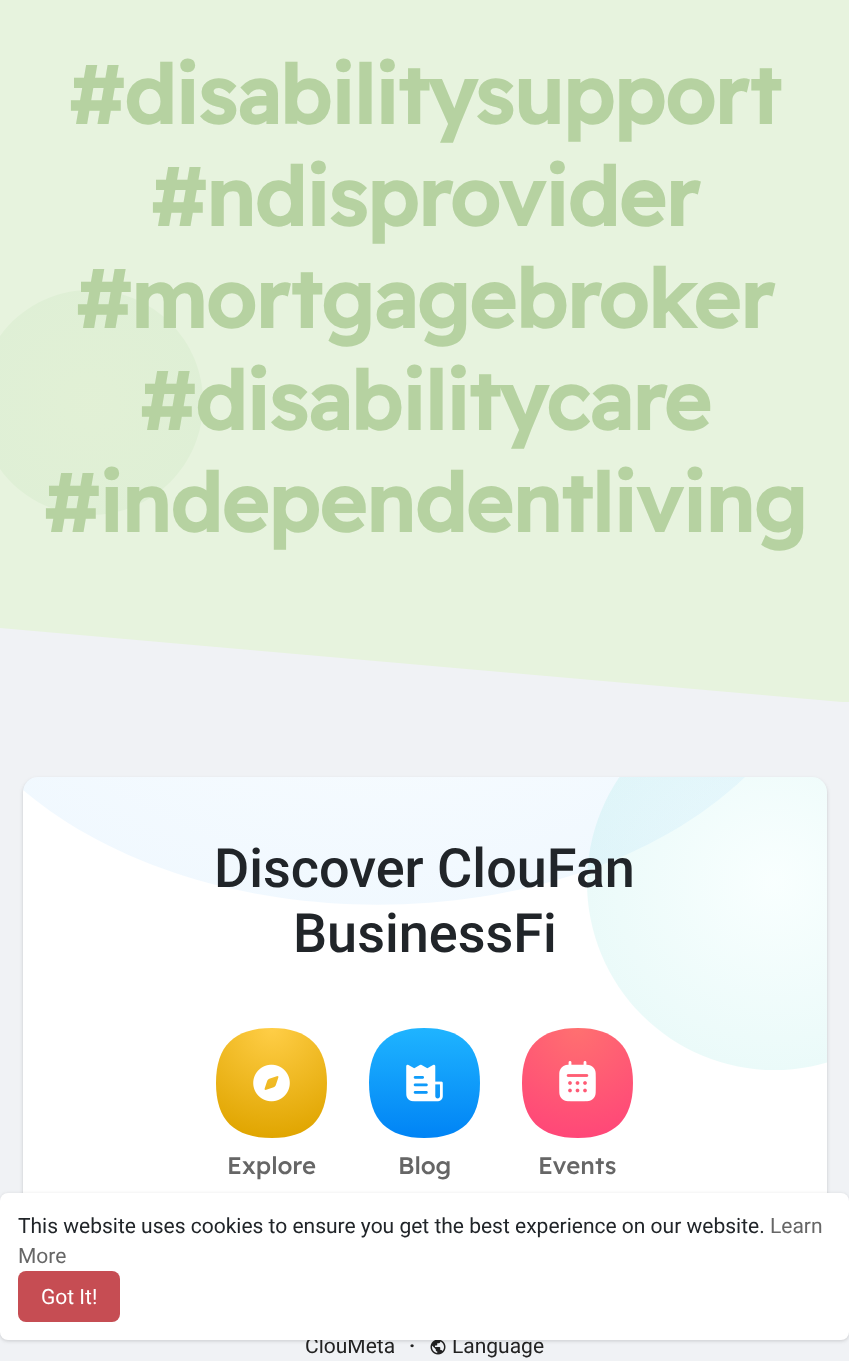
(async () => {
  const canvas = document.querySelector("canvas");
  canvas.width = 849;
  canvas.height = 1361;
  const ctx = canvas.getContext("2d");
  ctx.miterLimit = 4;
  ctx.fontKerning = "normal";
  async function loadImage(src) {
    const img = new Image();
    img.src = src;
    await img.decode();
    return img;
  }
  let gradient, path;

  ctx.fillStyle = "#f0f2f5";
  ctx.fillRect(0, 0, 849, 1361);
  ctx.fillStyle = "#e7f3de";
  path = new Path2D("M0-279V628L842 702H849V-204Z");
  ctx.fill(path);
  gradient = ctx.createRadialGradient(90, 402, 0, 90, 402, 159);
  gradient.addColorStop(0, "rgba(139, 195, 74, 0.06)");
  gradient.addColorStop(1, "rgba(76, 175, 80, 0.06)");
  ctx.fillStyle = gradient;
  path = new Path2D("M90 290C153 290 203 340 203 402C203 465 153 515 90 515C53 515 20 497 0 469V336C20 308 53 290 90 290Z");
  ctx.fill(path);
  ctx.fillStyle = "rgba(0, 0, 0, 0.06)";
  ctx.filter = "blur(1.5px)";
  ctx.beginPath();
  ctx.roundRect(23, 779, 804, 463, 15);
  ctx.fill();
  ctx.filter = "none";
  ctx.fillStyle = "rgba(0, 0, 0, 0.1)";
  ctx.filter = "blur(2px)";
  ctx.beginPath();
  ctx.roundRect(23, 779, 804, 463, 15);
  ctx.fill();
  ctx.filter = "none";
  ctx.fillStyle = "#ffffff";
  ctx.beginPath();
  ctx.roundRect(23, 777, 804, 464, 15);
  ctx.fill();
  gradient = ctx.createRadialGradient(377, 907.5, 0, 377, 907.5, 636);
  gradient.addColorStop(0, "rgba(181, 229, 255, 0.07)");
  gradient.addColorStop(1, "rgba(2, 135, 246, 0.07)");
  ctx.fillStyle = gradient;
  path = new Path2D("M38 777H745C569 944 207 946 23 790C24 783 30 777 38 777Z");
  ctx.save();
  ctx.clip(path);
  ctx.scale(1, 424 / 636);
  ctx.fillRect(0, 0, 849, 2042);
  ctx.restore();
  ctx.save();
  ctx.beginPath();
  ctx.roundRect(23, 777, 804, 464, 15);
  ctx.clip();
  gradient = ctx.createRadialGradient(774, 882, 0, 774, 882, 265);
  gradient.addColorStop(0, "rgba(192, 255, 251, 0.1)");
  gradient.addColorStop(1, "rgba(0, 188, 176, 0.1)");
  ctx.fillStyle = gradient;
  ctx.beginPath();
  ctx.arc(774.5, 882.5, 187.5, 0, Math.PI * 2);
  ctx.fill();
  ctx.restore();
  gradient = ctx.createRadialGradient(272, 1028, 0, 272, 1028, 111);
  gradient.addColorStop(0, "#ffce47");
  gradient.addColorStop(1, "#e0a500");
  ctx.fillStyle = gradient;
  path = new Path2D("M327 1083C327 1120 308 1138 272 1138C234 1138 216 1120 216 1083C216 1046 234 1028 272 1028C308 1028 327 1046 327 1083Z");
  ctx.fill(path);
  ctx.drawImage(await loadImage("img/1.png"), 253, 1064, 37, 38);
  gradient = ctx.createLinearGradient(425, 1028, 425, 1139);
  gradient.addColorStop(0, "#1fb4ff");
  gradient.addColorStop(1, "#0083f5");
  ctx.fillStyle = gradient;
  path = new Path2D("M480 1083C480 1120 462 1138 424 1138C388 1138 369 1120 369 1083C369 1046 388 1028 424 1028C462 1028 480 1046 480 1083Z");
  ctx.fill(path);
  ctx.drawImage(await loadImage("img/2.png"), 406, 1064, 37, 38);
  gradient = ctx.createRadialGradient(578, 1028, 0, 578, 1028, 111);
  gradient.addColorStop(0, "#ff7070");
  gradient.addColorStop(1, "#ff4778");
  ctx.fillStyle = gradient;
  path = new Path2D("M633 1083C633 1120 614 1138 578 1138C540 1138 522 1120 522 1083C522 1046 540 1028 578 1028C614 1028 633 1046 633 1083Z");
  ctx.fill(path);
  ctx.drawImage(await loadImage("img/3.png"), 559, 1061, 37, 41);
  ctx.drawImage(await loadImage("img/4.png"), 430, 1340, 16, 15);
  ctx.fillStyle = "rgba(0, 0, 0, 0.06)";
  ctx.filter = "blur(1.5px)";
  ctx.beginPath();
  ctx.roundRect(0, 1194, 849, 147, 8);
  ctx.fill();
  ctx.filter = "none";
  ctx.fillStyle = "rgba(0, 0, 0, 0.1)";
  ctx.filter = "blur(2px)";
  ctx.beginPath();
  ctx.roundRect(0, 1194, 849, 147, 8);
  ctx.fill();
  ctx.filter = "none";
  ctx.letterSpacing = "-0.75px";
  ctx.font = "bold 81px Readex Pro";
  ctx.fillStyle = "#b6d2a1";
  for (const [text, x, y] of [
    ["#disabilitysupport", 68, 124],
    ["#ndisprovider", 150, 226],
    ["#mortgagebroker", 75, 328],
    ["#disabilitycare", 139, 430],
    ["#independentliving", 43, 532],
  ]) {
    ctx.fillText(text, x, y);
  }
  ctx.letterSpacing = "0px";
  ctx.font = "500 54px Roboto";
  ctx.fillStyle = "#212529";
  ctx.fillText("Discover ClouFan", 214, 887);
  ctx.fillText("BusinessFi", 293, 952);
  ctx.font = "500 24px Readex Pro";
  ctx.fillStyle = "#666666";
  for (const [text, x, y] of [
    ["Explore", 227, 1174],
    ["Blog", 398, 1174],
    ["Events", 538, 1174],
  ]) {
    ctx.fillText(text, x, y);
  }
  ctx.font = "21px Roboto";
  ctx.fillStyle = "#222222";
  ctx.fillText("ClouMeta", 305, 1353);
  ctx.font = "bold 20px Roboto";
  ctx.fillText("·", 409, 1353);
  ctx.font = "21px Roboto";
  ctx.fillText("Language", 452, 1353);
  ctx.fillStyle = "#ffffff";
  ctx.beginPath();
  ctx.roundRect(0, 1193, 849, 147, 8);
  ctx.fill();
  ctx.fillStyle = "#212529";
  ctx.fillText("This website uses cookies to ensure you get the best experience on our website.", 18, 1233);
  ctx.fillStyle = "#666666";
  ctx.fillText("Learn", 770, 1233);
  ctx.fillText("More", 18, 1263);
  ctx.fillStyle = "#c64d53";
  ctx.beginPath();
  ctx.roundRect(18, 1271, 102, 51, 8);
  ctx.fill();
  ctx.fillStyle = "#ffffff";
  ctx.fillText("Got It!", 41, 1304);
})();
